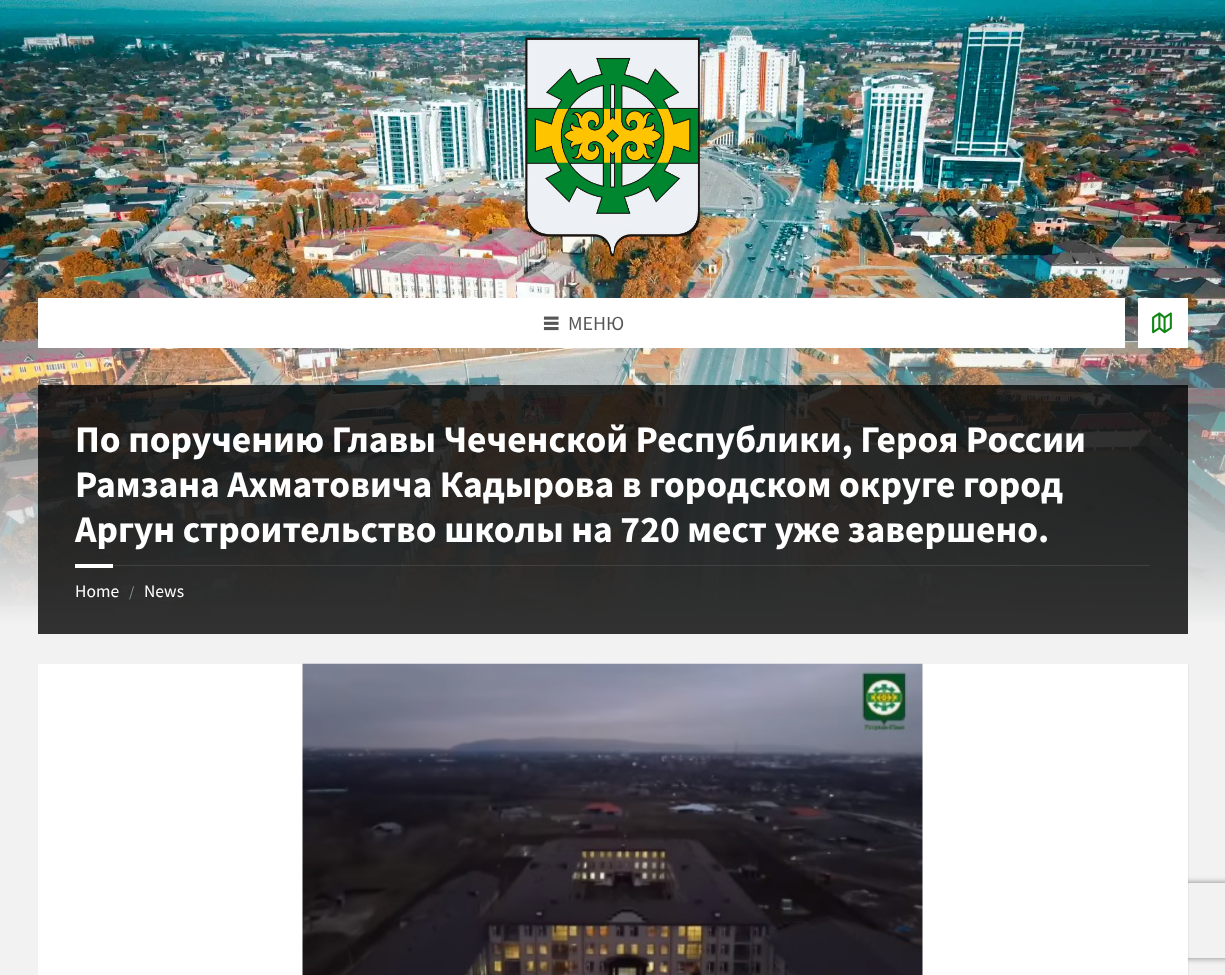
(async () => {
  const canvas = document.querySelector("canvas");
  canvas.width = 1225;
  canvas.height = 975;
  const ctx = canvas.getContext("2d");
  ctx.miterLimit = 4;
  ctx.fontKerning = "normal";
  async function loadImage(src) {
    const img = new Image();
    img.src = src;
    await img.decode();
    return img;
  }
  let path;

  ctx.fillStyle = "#f2f2f2";
  ctx.fillRect(0, 0, 1225, 975);
  ctx.drawImage(await loadImage("img/1.png"), 0, 0, 1225, 625);
  ctx.drawImage(await loadImage("img/2.png"), 525, 37, 175, 220);
  ctx.fillStyle = "#ffffff";
  ctx.fillRect(38, 298, 1087, 50);
  ctx.drawImage(await loadImage("img/3.png"), 543, 316, 16, 15);
  ctx.fillRect(1138, 298, 50, 50);
  ctx.drawImage(await loadImage("img/4.png"), 1152, 312, 20, 22);
  for (const [x, y, w, h, color] of [
    [38, 385, 1150, 249, "rgba(0, 0, 0, 0.8)"],
    [113, 565, 1037, 1, "rgba(255, 255, 255, 0.1)"],
    [75, 564, 38, 4, "#ffffff"],
  ]) {
    ctx.fillStyle = color;
    ctx.fillRect(x, y, w, h);
  }
  ctx.save();
  path = new Path2D("M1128 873H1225V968H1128ZM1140.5 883H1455.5C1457 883 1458 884 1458 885.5V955.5C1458 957 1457 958 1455.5 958H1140.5C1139 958 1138 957 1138 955.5V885.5C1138 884 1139 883 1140.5 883Z");
  ctx.clip(path, "evenodd");
  ctx.fillStyle = "#808080";
  ctx.filter = "blur(3px)";
  ctx.beginPath();
  ctx.roundRect(1138, 883, 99, 75, 2.5);
  ctx.fill();
  ctx.filter = "none";
  ctx.restore();
  ctx.fillStyle = "rgba(0, 0, 0, 0.05)";
  path = new Path2D("M39 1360V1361H1189V665H1188V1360Z");
  ctx.fill(path);
  ctx.fillStyle = "#ffffff";
  ctx.fillRect(38, 664, 1150, 311);
  ctx.drawImage(await loadImage("img/5.png"), 302, 663, 621, 312);
  ctx.font = "20px Source Sans Pro";
  ctx.fillStyle = "#565656";
  ctx.fillText("МЕНЮ", 568, 330);
  ctx.font = "bold 37.5px Source Sans Pro";
  ctx.fillStyle = "#ffffff";
  for (const [text, x, y] of [
    ["По поручению Главы Чеченской Республики, Героя России", 75, 452],
    ["Рамзана Ахматовича Кадырова в городском округе город", 75, 497],
    ["Аргун строительство школы на 720 мест уже завершено.", 75, 542],
  ]) {
    ctx.fillText(text, x, y);
  }
  ctx.font = "17.5px Source Sans Pro";
  ctx.fillText("Home", 75, 597);
  ctx.font = "15px Source Sans Pro";
  ctx.fillStyle = "#8a949b";
  ctx.fillText("/", 129, 597);
  ctx.font = "17.5px Source Sans Pro";
  ctx.fillStyle = "#ffffff";
  ctx.fillText("News", 144, 597);
})();
